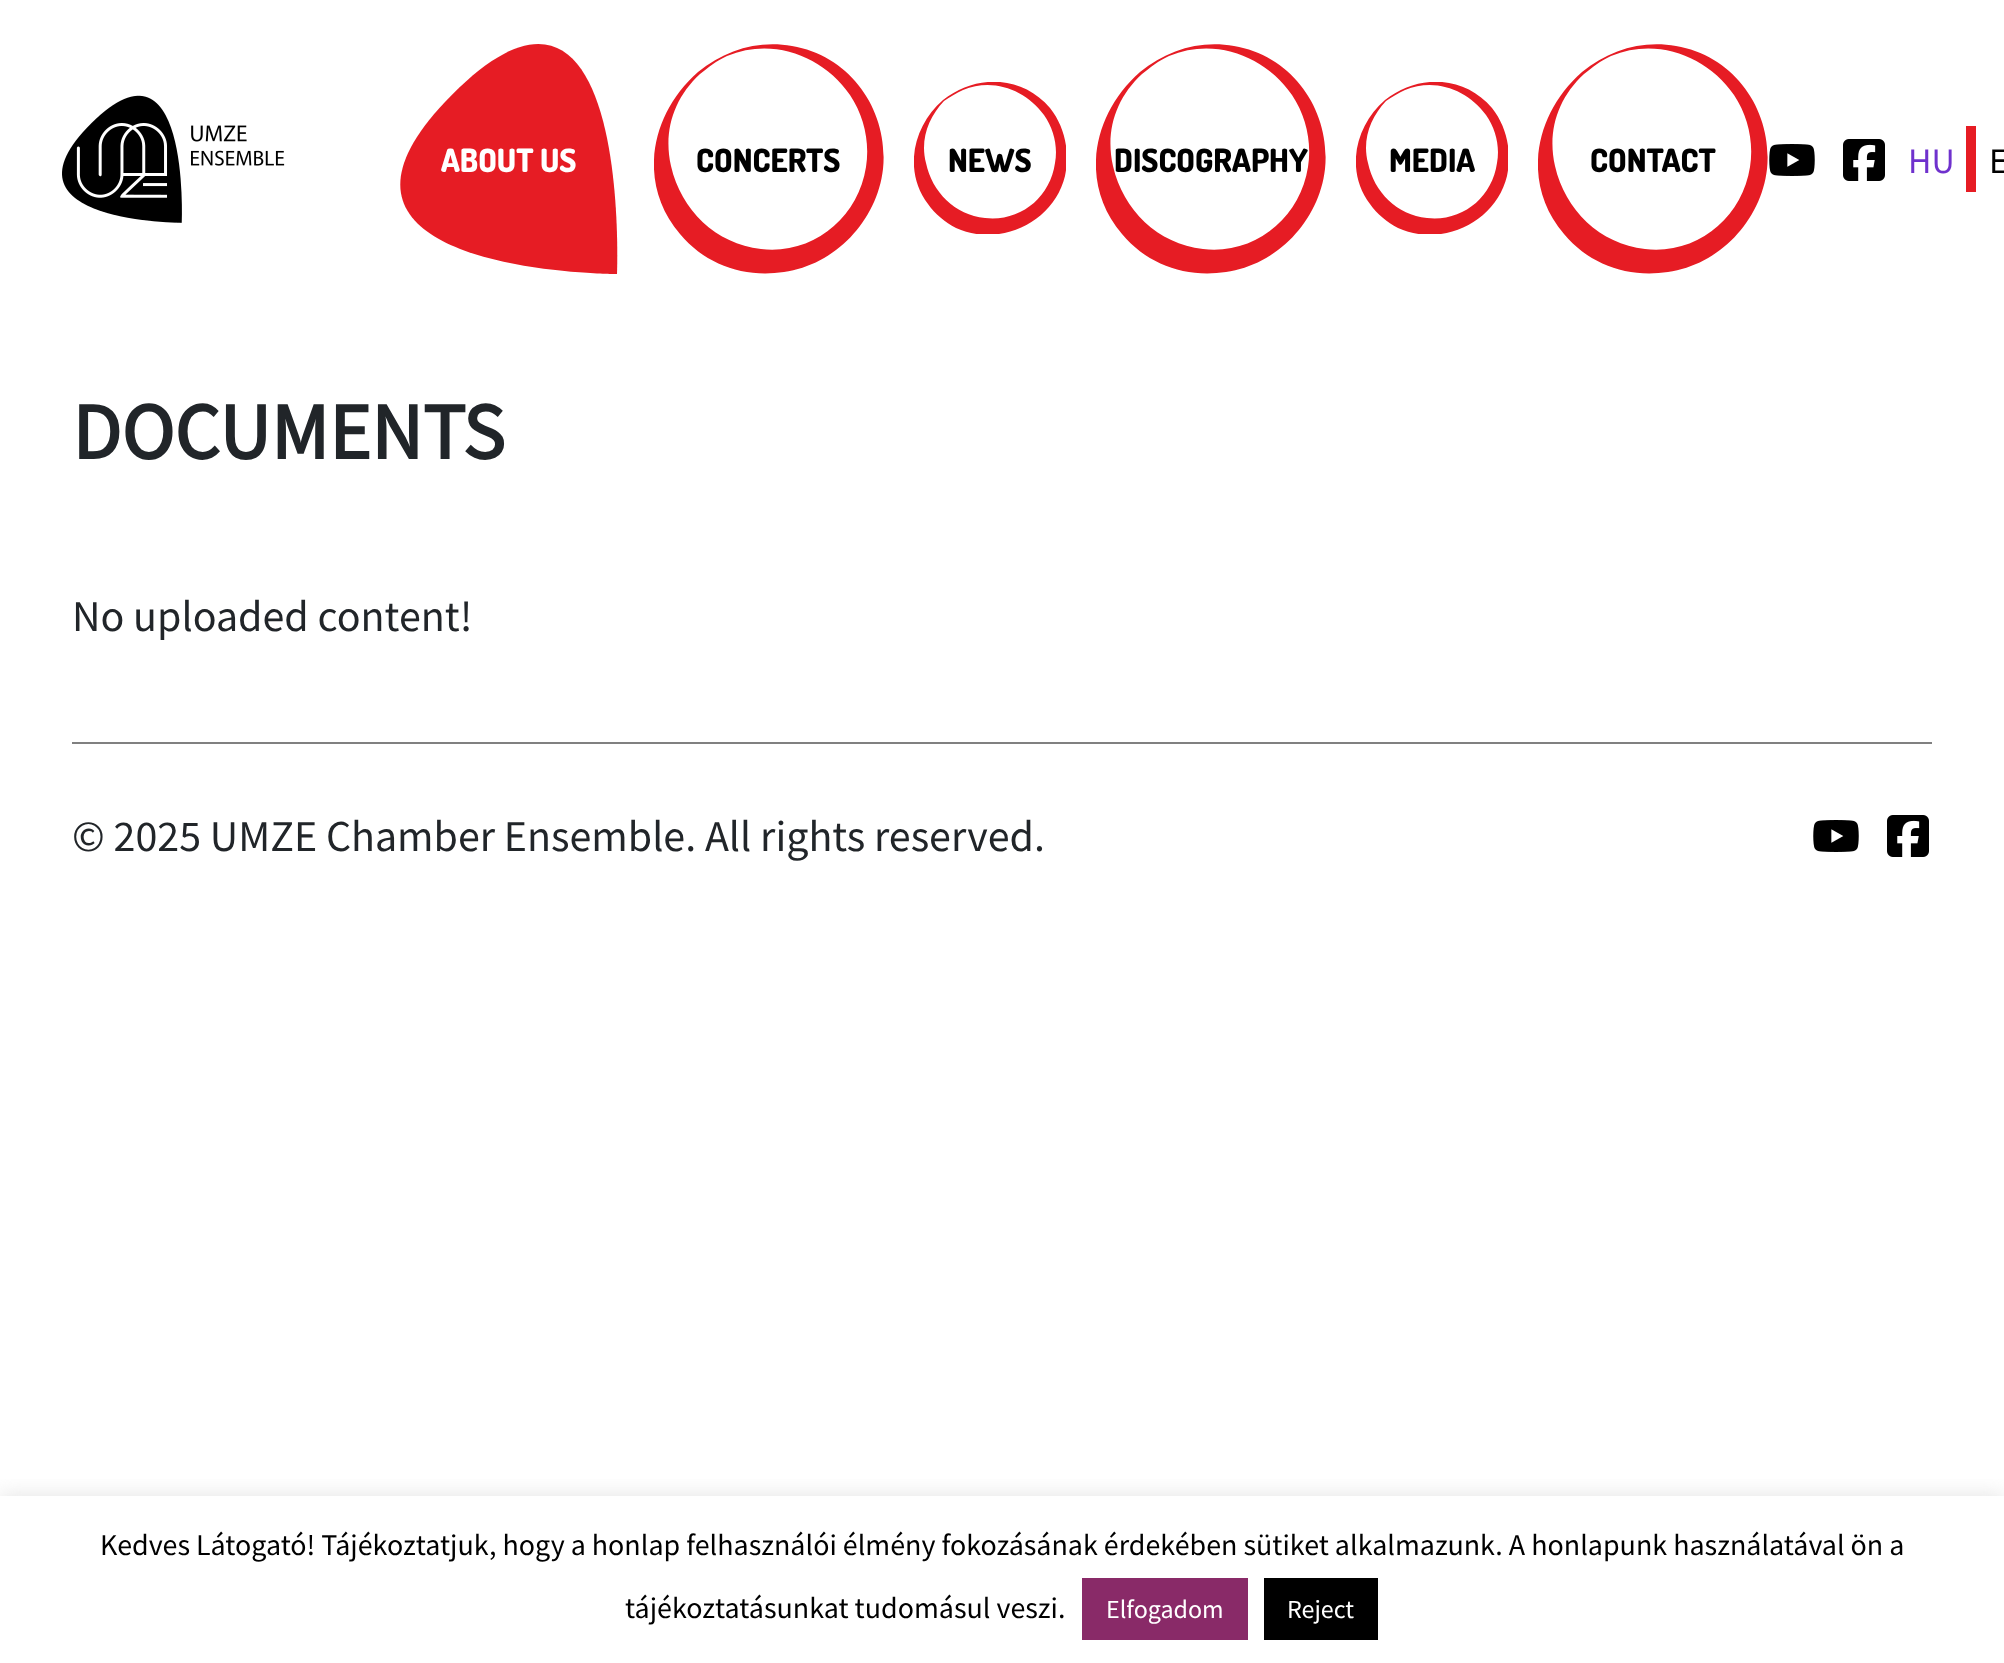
(async () => {
  const canvas = document.querySelector("canvas");
  canvas.width = 2004;
  canvas.height = 1663;
  const ctx = canvas.getContext("2d");
  ctx.miterLimit = 4;
  ctx.fontKerning = "normal";
  async function loadImage(src) {
    const img = new Image();
    img.src = src;
    await img.decode();
    return img;
  }
  let path;

  ctx.fillStyle = "#ffffff";
  ctx.fillRect(0, 0, 2004, 1663);
  ctx.drawImage(await loadImage("img/1.png"), 62, 95, 223, 128);
  ctx.fillStyle = "#e61c24";
  path = new Path2D("M445 102C282 274 617 274 617 274C617 274 632-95 445 102");
  ctx.fill(path);
  ctx.save();
  ctx.beginPath();
  ctx.rect(654, 44, 230, 230);
  ctx.clip();
  path = new Path2D("M698 72C725 50 758 40 792 46C851 56 889 111 883 169C877 221 835 265 784 272C744 278 706 265 680 234C637 184 650 114 698 72ZM700 74C674 98 663 131 671 166C681 210 716 244 761 249C813 255 858 218 866 167C870 142 864 116 850 95C823 56 773 37 727 56C716 61 709 67 700 74Z");
  ctx.fill(path);
  ctx.restore();
  ctx.save();
  ctx.beginPath();
  ctx.rect(914, 82, 152, 152);
  ctx.clip();
  path = new Path2D("M943 100C976 74 1022 75 1050 108C1065 127 1070 152 1065 176C1054 222 1000 248 956 228C945 222 935 214 928 204C903 171 913 126 943 100ZM944 101C928 118 920 140 926 163C932 192 955 215 985 218C1020 222 1050 198 1055 163C1058 147 1054 129 1044 115C1026 90 993 77 963 90C956 93 950 97 944 101Z");
  ctx.fill(path);
  ctx.restore();
  ctx.save();
  ctx.beginPath();
  ctx.rect(1096, 44, 230, 230);
  ctx.clip();
  path = new Path2D("M1140 72C1167 50 1200 40 1234 46C1293 56 1331 111 1325 169C1319 221 1277 265 1226 272C1186 278 1148 265 1122 234C1079 184 1092 114 1140 72ZM1142 74C1116 98 1105 131 1113 166C1123 210 1158 244 1203 249C1255 255 1300 218 1308 167C1312 142 1306 116 1292 95C1265 56 1215 37 1169 56C1158 61 1151 67 1142 74Z");
  ctx.fill(path);
  ctx.restore();
  ctx.save();
  ctx.beginPath();
  ctx.rect(1356, 82, 152, 152);
  ctx.clip();
  path = new Path2D("M1385 100C1418 74 1464 75 1492 108C1507 127 1512 152 1507 176C1496 222 1442 248 1398 228C1387 222 1377 214 1370 204C1345 171 1355 126 1385 100ZM1386 101C1370 118 1362 140 1368 163C1374 192 1397 215 1427 218C1462 222 1492 198 1497 163C1500 147 1496 129 1486 115C1468 90 1435 77 1405 90C1398 93 1392 97 1386 101Z");
  ctx.fill(path);
  ctx.restore();
  ctx.save();
  ctx.beginPath();
  ctx.rect(1538, 44, 230, 230);
  ctx.clip();
  path = new Path2D("M1582 72C1609 50 1642 40 1676 46C1735 56 1773 111 1767 169C1761 221 1719 265 1668 272C1628 278 1590 265 1564 234C1521 184 1534 114 1582 72ZM1584 74C1558 98 1547 131 1555 166C1565 210 1600 244 1645 249C1697 255 1742 218 1750 167C1754 142 1748 116 1734 95C1707 56 1657 37 1611 56C1600 61 1593 67 1584 74Z");
  ctx.fill(path);
  ctx.restore();
  ctx.drawImage(await loadImage("img/2.png"), 1769, 144, 46, 32);
  ctx.drawImage(await loadImage("img/3.png"), 1843, 139, 42, 42);
  ctx.fillRect(1966, 126, 10, 66);
  ctx.fillStyle = "#808080";
  ctx.fillRect(72, 742, 1860, 2);
  ctx.drawImage(await loadImage("img/2.png"), 1813, 820, 46, 32);
  ctx.drawImage(await loadImage("img/3.png"), 1887, 815, 42, 42);
  ctx.save();
  ctx.beginPath();
  ctx.rect(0, 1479, 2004, 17);
  ctx.clip();
  ctx.fillStyle = "rgba(172, 171, 171, 0.3)";
  ctx.filter = "blur(10px)";
  ctx.beginPath();
  ctx.rect(0, 1494, 2004, 168);
  ctx.fill();
  ctx.filter = "none";
  ctx.restore();
  ctx.fillStyle = "#892a68";
  ctx.fillRect(1082, 1578, 166, 62);
  ctx.fillStyle = "#000000";
  ctx.fillRect(1264, 1578, 114, 62);
  ctx.font = "800 32px Dosis";
  ctx.fillStyle = "#ffffff";
  ctx.fillText("ABOUT US", 441, 172);
  ctx.fillStyle = "#000000";
  for (const [text, x, y] of [
    ["CONCERTS", 696, 172],
    ["NEWS", 948, 172],
    ["DISCOGRAPHY", 1114, 172],
    ["MEDIA", 1389, 172],
    ["CONTACT", 1590, 172],
  ]) {
    ctx.fillText(text, x, y);
  }
  ctx.font = "36px Source Sans Pro";
  ctx.fillStyle = "#6f31cd";
  ctx.fillText("HU", 1908, 173);
  ctx.fillStyle = "#000000";
  ctx.fillText("E", 1989, 173);
  ctx.font = "bold 80px Source Sans Pro";
  ctx.fillStyle = "#212529";
  ctx.fillText("DOCUMENTS", 72, 459);
  ctx.font = "44px Source Sans Pro";
  ctx.fillText("No uploaded content!", 72, 631);
  ctx.fillText("© 2025 UMZE Chamber Ensemble. All rights reserved.", 72, 851);
  ctx.font = "30px Source Sans Pro";
  ctx.fillStyle = "#000000";
  ctx.fillText("Kedves Látogató! Tájékoztatjuk, hogy a honlap felhasználói élmény fokozásának érdekében sütiket alkalmazunk. A honlapunk használatával ön a", 100, 1555);
  ctx.fillText("tájékoztatásunkat tudomásul veszi.", 625, 1618);
  ctx.font = "26px Source Sans Pro";
  ctx.fillStyle = "#ffffff";
  ctx.fillText("Elfogadom", 1106, 1618);
  ctx.fillText("Reject", 1287, 1618);
})();
